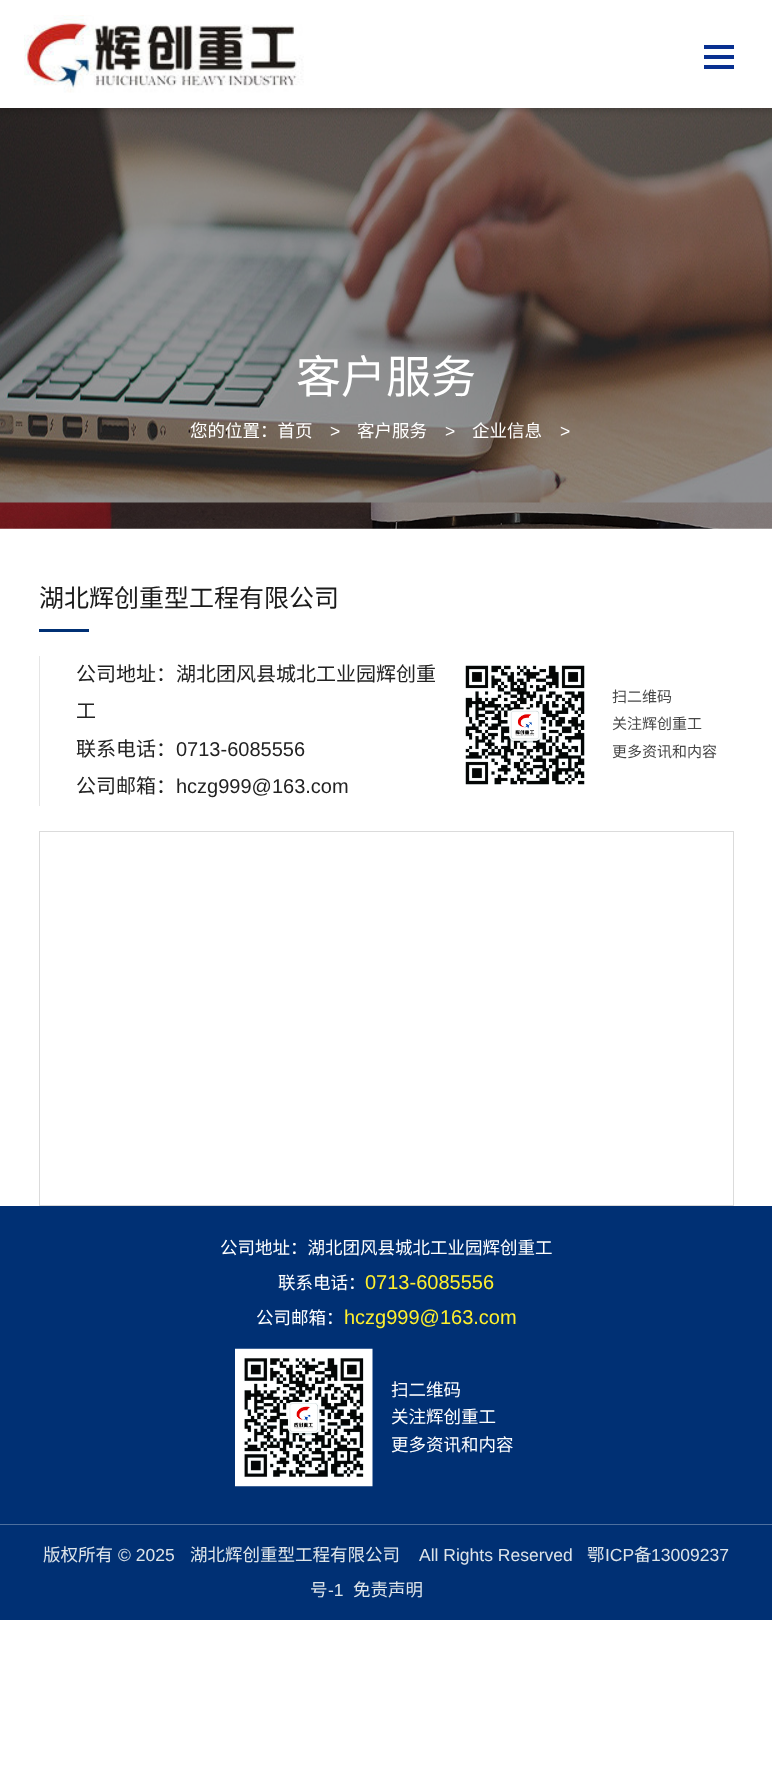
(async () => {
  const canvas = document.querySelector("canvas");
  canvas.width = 772;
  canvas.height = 1785;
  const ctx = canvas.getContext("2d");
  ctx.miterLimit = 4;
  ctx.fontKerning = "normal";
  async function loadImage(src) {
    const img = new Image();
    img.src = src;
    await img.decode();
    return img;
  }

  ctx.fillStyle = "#ffffff";
  ctx.fillRect(0, 0, 772, 1785);
  ctx.drawImage(await loadImage("img/2.png"), 0, 108, 772, 421);
  ctx.fillStyle = "rgba(0, 0, 0, 0.2)";
  ctx.filter = "blur(3px)";
  ctx.beginPath();
  ctx.rect(0, 3, 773, 107);
  ctx.fill();
  ctx.filter = "none";
  ctx.fillStyle = "#ffffff";
  ctx.fillRect(0, 0, 772, 108);
  ctx.drawImage(await loadImage("img/1.png"), 24, 15, 280, 78);
  for (const [x, y, w, h, color] of [
    [704, 45, 30, 4, "#083090"],
    [704, 55, 30, 4, "#083090"],
    [704, 65, 30, 4, "#083090"],
    [39, 629, 50, 3, "#003074"],
    [39, 656, 1, 150, "#e5e5e5"],
  ]) {
    ctx.fillStyle = color;
    ctx.fillRect(x, y, w, h);
  }
  ctx.drawImage(await loadImage("img/3.png"), 465, 665, 120, 120);
  ctx.strokeStyle = "#dbdbdb";
  ctx.strokeRect(39.5, 831.5, 694, 374);
  ctx.fillStyle = "#003074";
  ctx.fillRect(0, 1206, 772, 318);
  ctx.drawImage(await loadImage("img/4.png"), 235, 1348, 138, 139);
  ctx.fillRect(0, 1525, 772, 95);
  ctx.fillStyle = "#4d6f9e";
  ctx.fillRect(0, 1524, 772, 1);
  ctx.font = "45px Noto Sans CJK SC";
  ctx.fillStyle = "#ffffff";
  ctx.fillText("客户服务", 296, 393);
  ctx.font = "17.5px Noto Sans CJK SC";
  ctx.fillText("您的位置：首页", 190, 437);
  ctx.font = "17.5px Liberation Sans";
  ctx.fillText(">", 330, 437);
  ctx.font = "17.5px Noto Sans CJK SC";
  ctx.fillText("客户服务", 357, 437);
  ctx.font = "17.5px Liberation Sans";
  ctx.fillText(">", 445, 437);
  ctx.font = "17.5px Noto Sans CJK SC";
  ctx.fillText("企业信息", 472, 437);
  ctx.font = "17.5px Liberation Sans";
  ctx.fillText(">", 560, 437);
  ctx.font = "25px Noto Sans CJK SC";
  ctx.fillStyle = "#1a1a1a";
  ctx.fillText("湖北辉创重型工程有限公司", 39, 607);
  ctx.font = "20px Noto Sans CJK SC";
  ctx.fillStyle = "#222222";
  for (const [text, x, y] of [
    ["公司地址：湖北团风县城北工业园辉创重", 76, 681],
    ["工", 76, 718],
    ["联系电话：", 76, 756],
  ]) {
    ctx.fillText(text, x, y);
  }
  ctx.font = "20px Liberation Sans";
  ctx.fillText("0713-6085556", 176, 756);
  ctx.font = "20px Noto Sans CJK SC";
  ctx.fillText("公司邮箱：", 76, 793);
  ctx.font = "20px Liberation Sans";
  ctx.fillText("hczg999@163.com", 176, 793);
  ctx.font = "15px Noto Sans CJK SC";
  ctx.fillStyle = "#474747";
  for (const [text, x, y] of [
    ["扫二维码", 612, 702],
    ["关注辉创重工", 612, 729],
    ["更多资讯和内容", 612, 757],
  ]) {
    ctx.fillText(text, x, y);
  }
  ctx.font = "17.5px Noto Sans CJK SC";
  ctx.fillStyle = "#ffffff";
  ctx.fillText("公司地址：湖北团风县城北工业园辉创重工", 220, 1254);
  ctx.fillText("联系电话：", 278, 1289);
  ctx.font = "20px Liberation Sans";
  ctx.fillStyle = "#fff02d";
  ctx.fillText("0713-6085556", 365, 1289);
  ctx.font = "17.5px Noto Sans CJK SC";
  ctx.fillStyle = "#ffffff";
  ctx.fillText("公司邮箱：", 256, 1324);
  ctx.font = "20px Liberation Sans";
  ctx.fillStyle = "#fff02d";
  ctx.fillText("hczg999@163.com", 344, 1324);
  ctx.font = "17.5px Noto Sans CJK SC";
  ctx.fillStyle = "#ffffff";
  for (const [text, x, y] of [
    ["扫二维码", 391, 1396],
    ["关注辉创重工", 391, 1423],
    ["更多资讯和内容", 391, 1451],
  ]) {
    ctx.fillText(text, x, y);
  }
  ctx.fillStyle = "#dde4e9";
  ctx.fillText("版权所有", 43, 1561);
  ctx.font = "17.5px Liberation Sans";
  ctx.fillText("© 2025", 118, 1561);
  ctx.font = "17.5px Noto Sans CJK SC";
  ctx.fillText("湖北辉创重型工程有限公司", 190, 1561);
  ctx.font = "17.5px Liberation Sans";
  ctx.fillText("All Rights Reserved", 419, 1561);
  ctx.font = "17.5px Noto Sans CJK SC";
  ctx.fillText("鄂", 587, 1561);
  ctx.font = "17.5px Liberation Sans";
  ctx.fillText("ICP", 605, 1561);
  ctx.font = "17.5px Noto Sans CJK SC";
  ctx.fillText("备", 634, 1561);
  ctx.font = "17.5px Liberation Sans";
  ctx.fillText("13009237", 651, 1561);
  ctx.font = "17.5px Noto Sans CJK SC";
  ctx.fillText("号", 310, 1596);
  ctx.font = "17.5px Liberation Sans";
  ctx.fillText("-1", 328, 1596);
  ctx.font = "17.5px Noto Sans CJK SC";
  ctx.fillText("免责声明", 353, 1596);
})();
